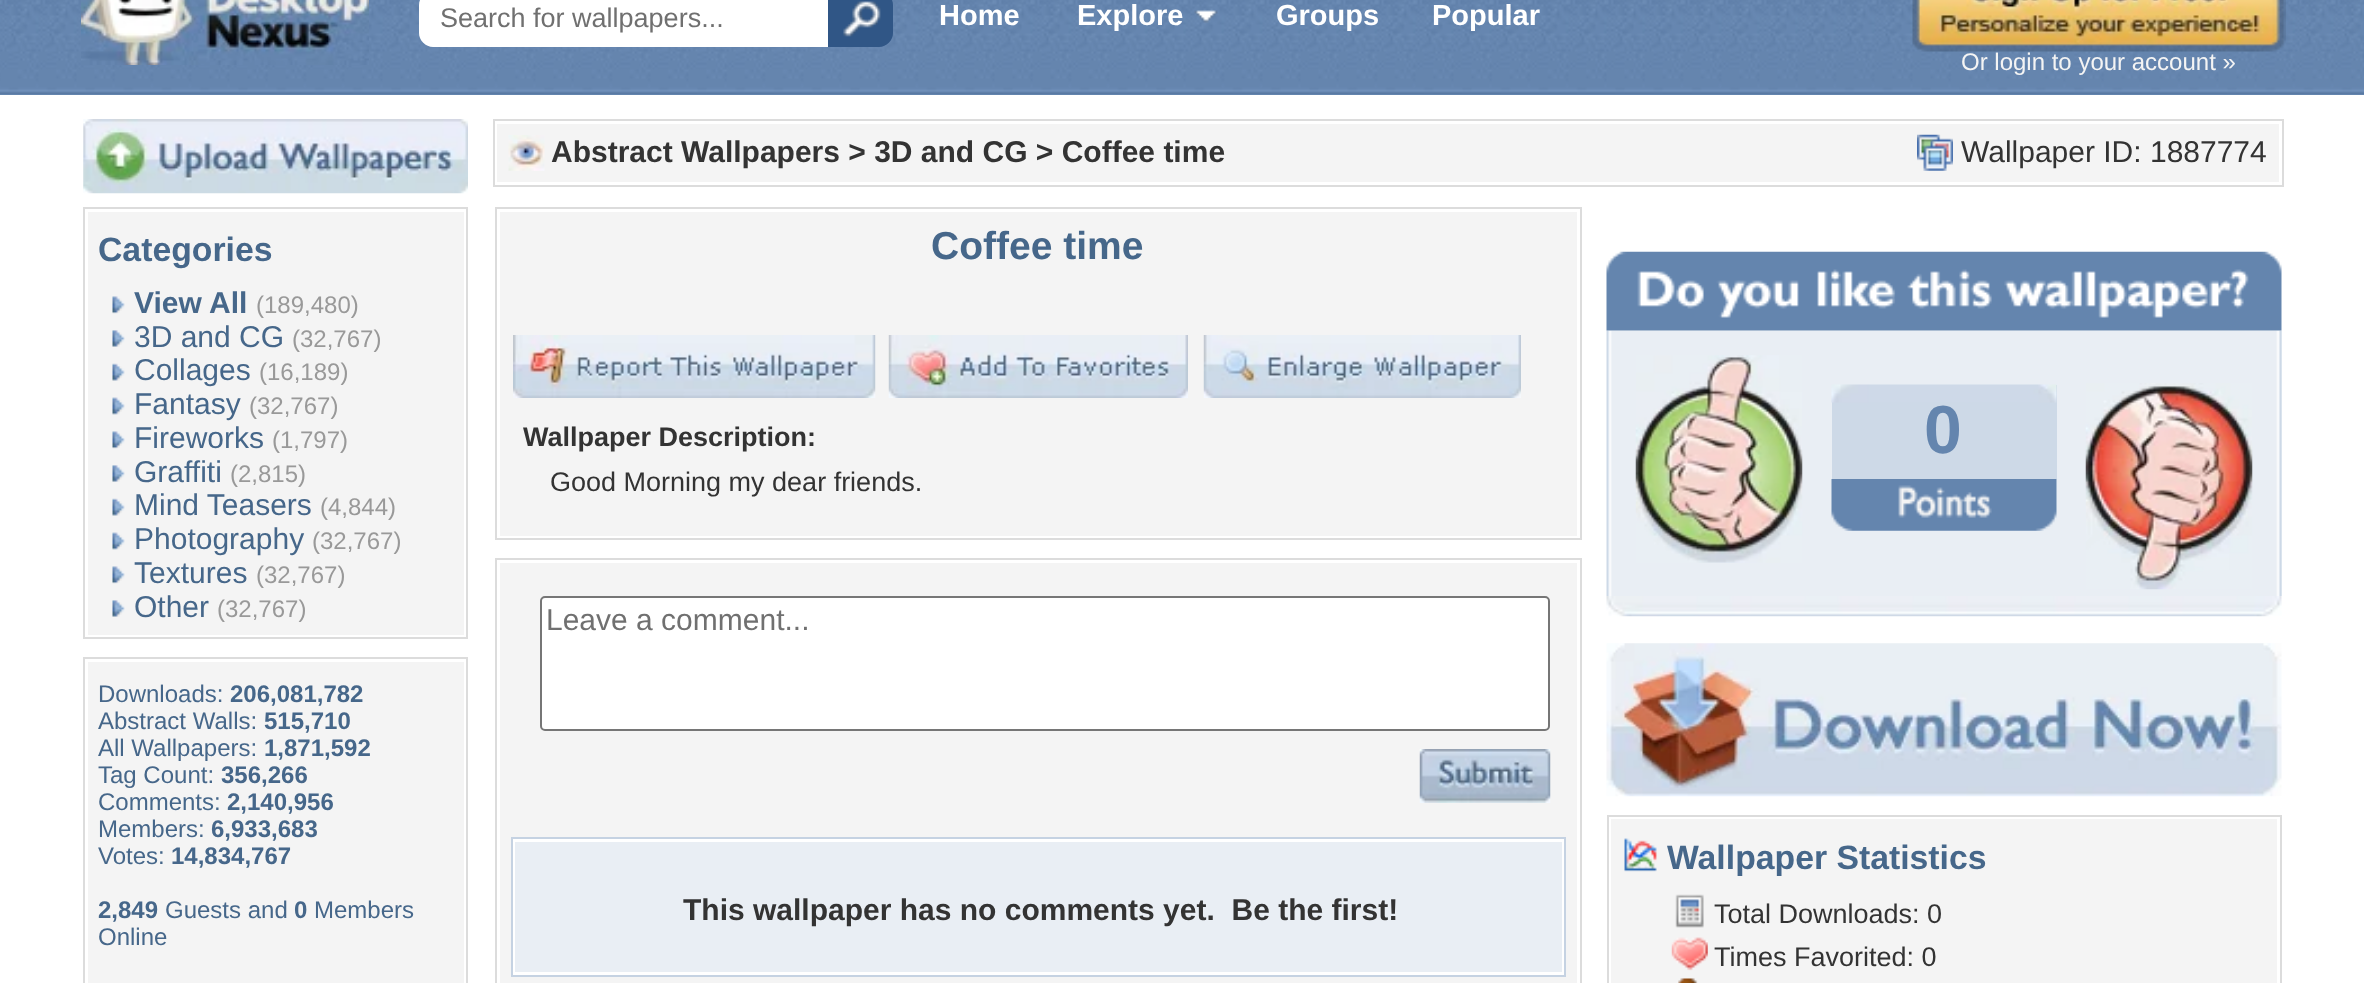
(async () => {
  const canvas = document.querySelector("canvas");
  canvas.width = 2364;
  canvas.height = 983;
  const ctx = canvas.getContext("2d");
  ctx.miterLimit = 4;
  ctx.fontKerning = "normal";
  async function loadImage(src) {
    const img = new Image();
    img.src = src;
    await img.decode();
    return img;
  }
  let path;

  ctx.fillStyle = "#ffffff";
  ctx.fillRect(0, 0, 2364, 983);
  ctx.fillStyle = "#6384ad";
  ctx.fillRect(0, 94, 2364, 1);
  ctx.drawImage(await loadImage("img/1.png"), 0, 0, 2364, 94);
  ctx.drawImage(await loadImage("img/2.png"), 81, 0, 288, 65);
  ctx.fillStyle = "#ffffff";
  path = new Path2D("M433-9H864V47H433C425.5 47 419 40.5 419 33V5C419-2.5 425.5-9 433-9Z");
  ctx.fill(path);
  ctx.fillStyle = "#305686";
  path = new Path2D("M828-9H879C886.5-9 893-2.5 893 5V33C893 40.5 886.5 47 879 47H828Z");
  ctx.fill(path);
  ctx.drawImage(await loadImage("img/3.png"), 843, 1, 38, 36);
  ctx.drawImage(await loadImage("img/4.png"), 1194, 10, 24, 13);
  ctx.drawImage(await loadImage("img/5.png"), 1912, 0, 374, 52);
  ctx.drawImage(await loadImage("img/6.png"), 83, 119, 385, 75);
  ctx.strokeStyle = "#dcdcdc";
  ctx.lineWidth = 2;
  ctx.strokeRect(84, 208, 383, 430);
  ctx.fillStyle = "#f4f4f4";
  ctx.fillRect(88, 212, 376, 423);
  ctx.drawImage(await loadImage("img/7.png"), 112, 296, 13, 18);
  ctx.drawImage(await loadImage("img/8.png"), 112, 330, 13, 17);
  ctx.drawImage(await loadImage("img/9.png"), 112, 363, 13, 18);
  ctx.drawImage(await loadImage("img/10.png"), 112, 397, 13, 18);
  ctx.drawImage(await loadImage("img/7.png"), 112, 431, 13, 18);
  ctx.drawImage(await loadImage("img/8.png"), 112, 465, 13, 17);
  ctx.drawImage(await loadImage("img/9.png"), 112, 498, 13, 18);
  ctx.drawImage(await loadImage("img/10.png"), 112, 532, 13, 18);
  ctx.drawImage(await loadImage("img/7.png"), 112, 566, 13, 18);
  ctx.drawImage(await loadImage("img/8.png"), 112, 600, 13, 17);
  ctx.strokeRect(84, 658, 383, 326);
  ctx.fillRect(88, 662, 376, 321);
  ctx.strokeRect(494, 120, 1789, 66);
  ctx.fillRect(497, 124, 1782, 58);
  ctx.drawImage(await loadImage("img/11.png"), 508, 135, 37, 36);
  ctx.drawImage(await loadImage("img/12.png"), 1917, 134, 36, 37);
  ctx.strokeRect(496, 208, 1085, 331);
  ctx.fillRect(500, 212, 1077, 324);
  ctx.drawImage(await loadImage("img/13.png"), 513, 335, 363, 63);
  ctx.drawImage(await loadImage("img/14.png"), 888, 335, 300, 63);
  ctx.drawImage(await loadImage("img/15.png"), 1203, 335, 318, 63);
  ctx.strokeRect(496, 559, 1085, 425);
  ctx.fillRect(500, 563, 1077, 420);
  ctx.fillStyle = "#ffffff";
  ctx.beginPath();
  ctx.roundRect(541, 597, 1008, 133, 4);
  ctx.fill();
  ctx.strokeStyle = "#767676";
  ctx.stroke();
  ctx.drawImage(await loadImage("img/16.png"), 1419, 749, 132, 54);
  ctx.beginPath();
  ctx.rect(512, 838, 1053, 138);
  ctx.fill();
  ctx.strokeStyle = "#c5d2e2";
  ctx.stroke();
  ctx.fillStyle = "#e9eef4";
  ctx.fillRect(515, 842, 1047, 130);
  ctx.fillRect(2281, 331, 1, 265);
  ctx.drawImage(await loadImage("img/18.png"), 1606, 330, 676, 266);
  ctx.drawImage(await loadImage("img/17.png"), 1606, 251, 676, 80);
  ctx.drawImage(await loadImage("img/19.png"), 1635, 355, 168, 208);
  ctx.fillStyle = "#cdd9e7";
  ctx.fillRect(1832, 385, 225, 94);
  ctx.drawImage(await loadImage("img/20.png"), 1831, 384, 226, 19);
  ctx.drawImage(await loadImage("img/21.png"), 1831, 479, 226, 52);
  ctx.drawImage(await loadImage("img/22.png"), 2085, 383, 168, 207);
  ctx.drawImage(await loadImage("img/23.png"), 1606, 596, 676, 21);
  ctx.drawImage(await loadImage("img/24.png"), 1606, 643, 676, 154);
  ctx.strokeStyle = "#dcdcdc";
  ctx.strokeRect(1608, 816, 673, 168);
  ctx.fillStyle = "#f4f4f4";
  ctx.fillRect(1611, 819, 666, 164);
  ctx.drawImage(await loadImage("img/25.png"), 1624, 838, 33, 34);
  ctx.drawImage(await loadImage("img/26.png"), 1675, 894, 29, 34);
  ctx.drawImage(await loadImage("img/27.png"), 1671, 937, 37, 34);
  ctx.drawImage(await loadImage("img/28.png"), 1678, 978, 20, 5);
  ctx.font = "27px Liberation Sans";
  ctx.fillStyle = "#707070";
  ctx.fillText("Search for wallpapers...", 440, 27);
  ctx.font = "bold 29px Liberation Sans";
  ctx.fillStyle = "#ffffff";
  for (const [text, x, y] of [
    ["Home", 939, 25],
    ["Explore", 1077, 25],
    ["Groups", 1276, 25],
    ["Popular", 1432, 25],
  ]) {
    ctx.fillText(text, x, y);
  }
  ctx.font = "24px Liberation Sans";
  ctx.fillStyle = "#f4f4f4";
  ctx.fillText("Or login to your account »", 1961, 70);
  ctx.font = "bold 33.75px Liberation Sans";
  ctx.fillStyle = "#46678a";
  ctx.fillText("Categories", 98, 261);
  ctx.font = "bold 30px Liberation Sans";
  ctx.fillText("View All", 134, 313);
  ctx.font = "24px Liberation Sans";
  ctx.fillStyle = "#999999";
  ctx.fillText("(189,480)", 256, 313);
  ctx.font = "30px Liberation Sans";
  ctx.fillStyle = "#46678a";
  ctx.fillText("3D and CG", 134, 347);
  ctx.font = "24px Liberation Sans";
  ctx.fillStyle = "#999999";
  ctx.fillText("(32,767)", 292, 347);
  ctx.font = "30px Liberation Sans";
  ctx.fillStyle = "#46678a";
  ctx.fillText("Collages", 134, 380);
  ctx.font = "24px Liberation Sans";
  ctx.fillStyle = "#999999";
  ctx.fillText("(16,189)", 259, 380);
  ctx.font = "30px Liberation Sans";
  ctx.fillStyle = "#46678a";
  ctx.fillText("Fantasy", 134, 414);
  ctx.font = "24px Liberation Sans";
  ctx.fillStyle = "#999999";
  ctx.fillText("(32,767)", 249, 414);
  ctx.font = "30px Liberation Sans";
  ctx.fillStyle = "#46678a";
  ctx.fillText("Fireworks", 134, 448);
  ctx.font = "24px Liberation Sans";
  ctx.fillStyle = "#999999";
  ctx.fillText("(1,797)", 272, 448);
  ctx.font = "30px Liberation Sans";
  ctx.fillStyle = "#46678a";
  ctx.fillText("Graffiti", 134, 482);
  ctx.font = "24px Liberation Sans";
  ctx.fillStyle = "#999999";
  ctx.fillText("(2,815)", 230, 482);
  ctx.font = "30px Liberation Sans";
  ctx.fillStyle = "#46678a";
  ctx.fillText("Mind Teasers", 134, 515);
  ctx.font = "24px Liberation Sans";
  ctx.fillStyle = "#999999";
  ctx.fillText("(4,844)", 320, 515);
  ctx.font = "30px Liberation Sans";
  ctx.fillStyle = "#46678a";
  ctx.fillText("Photography", 134, 549);
  ctx.font = "24px Liberation Sans";
  ctx.fillStyle = "#999999";
  ctx.fillText("(32,767)", 312, 549);
  ctx.font = "30px Liberation Sans";
  ctx.fillStyle = "#46678a";
  ctx.fillText("Textures", 134, 583);
  ctx.font = "24px Liberation Sans";
  ctx.fillStyle = "#999999";
  ctx.fillText("(32,767)", 256, 583);
  ctx.font = "30px Liberation Sans";
  ctx.fillStyle = "#46678a";
  ctx.fillText("Other", 134, 617);
  ctx.font = "24px Liberation Sans";
  ctx.fillStyle = "#999999";
  ctx.fillText("(32,767)", 217, 617);
  ctx.fillStyle = "#46678a";
  ctx.fillText("Downloads:", 98, 702);
  ctx.font = "bold 24px Liberation Sans";
  ctx.fillText("206,081,782", 230, 702);
  ctx.font = "24px Liberation Sans";
  ctx.fillText("Abstract Walls:", 98, 729);
  ctx.font = "bold 24px Liberation Sans";
  ctx.fillText("515,710", 264, 729);
  ctx.font = "24px Liberation Sans";
  ctx.fillText("All Wallpapers:", 98, 756);
  ctx.font = "bold 24px Liberation Sans";
  ctx.fillText("1,871,592", 264, 756);
  ctx.font = "24px Liberation Sans";
  ctx.fillText("Tag Count:", 98, 783);
  ctx.font = "bold 24px Liberation Sans";
  ctx.fillText("356,266", 221, 783);
  ctx.font = "24px Liberation Sans";
  ctx.fillText("Comments:", 98, 810);
  ctx.font = "bold 24px Liberation Sans";
  ctx.fillText("2,140,956", 227, 810);
  ctx.font = "24px Liberation Sans";
  ctx.fillText("Members:", 98, 837);
  ctx.font = "bold 24px Liberation Sans";
  ctx.fillText("6,933,683", 211, 837);
  ctx.font = "24px Liberation Sans";
  ctx.fillText("Votes:", 98, 864);
  ctx.font = "bold 24px Liberation Sans";
  ctx.fillText("14,834,767", 171, 864);
  ctx.fillText("2,849", 98, 918);
  ctx.font = "24px Liberation Sans";
  ctx.fillText("Guests and", 165, 918);
  ctx.font = "bold 24px Liberation Sans";
  ctx.fillText("0", 294, 918);
  ctx.font = "24px Liberation Sans";
  ctx.fillText("Members", 314, 918);
  ctx.fillText("Online", 98, 945);
  ctx.font = "bold 30px Liberation Sans";
  ctx.fillStyle = "#333333";
  ctx.fillText("Abstract Wallpapers > 3D and CG > Coffee time", 551, 162);
  ctx.font = "30px Liberation Sans";
  ctx.fillText("Wallpaper ID: 1887774", 1961, 162);
  ctx.font = "bold 39px Liberation Sans";
  ctx.fillStyle = "#46678a";
  ctx.fillText("Coffee time", 931, 259);
  ctx.font = "bold 27px Liberation Sans";
  ctx.fillStyle = "#333333";
  ctx.fillText("Wallpaper Description:", 523, 446);
  ctx.font = "27px Liberation Sans";
  ctx.fillText("Good Morning my dear friends.", 550, 491);
  ctx.font = "30px Liberation Sans";
  ctx.fillStyle = "#707070";
  ctx.fillText("Leave a comment...", 546, 630);
  ctx.font = "bold 30px Liberation Sans";
  ctx.fillStyle = "#333333";
  ctx.fillText("This wallpaper has no comments yet.  Be the first!", 683, 920);
  ctx.font = "bold 68px Liberation Sans";
  ctx.fillStyle = "#6485ae";
  ctx.fillText("0", 1924, 453);
  ctx.font = "bold 33.75px Liberation Sans";
  ctx.fillStyle = "#46678a";
  ctx.fillText("Wallpaper Statistics", 1667, 869);
  ctx.font = "27px Liberation Sans";
  ctx.fillStyle = "#333333";
  ctx.fillText("Total Downloads: 0", 1714, 923);
  ctx.fillText("Times Favorited: 0", 1714, 966);
})();
